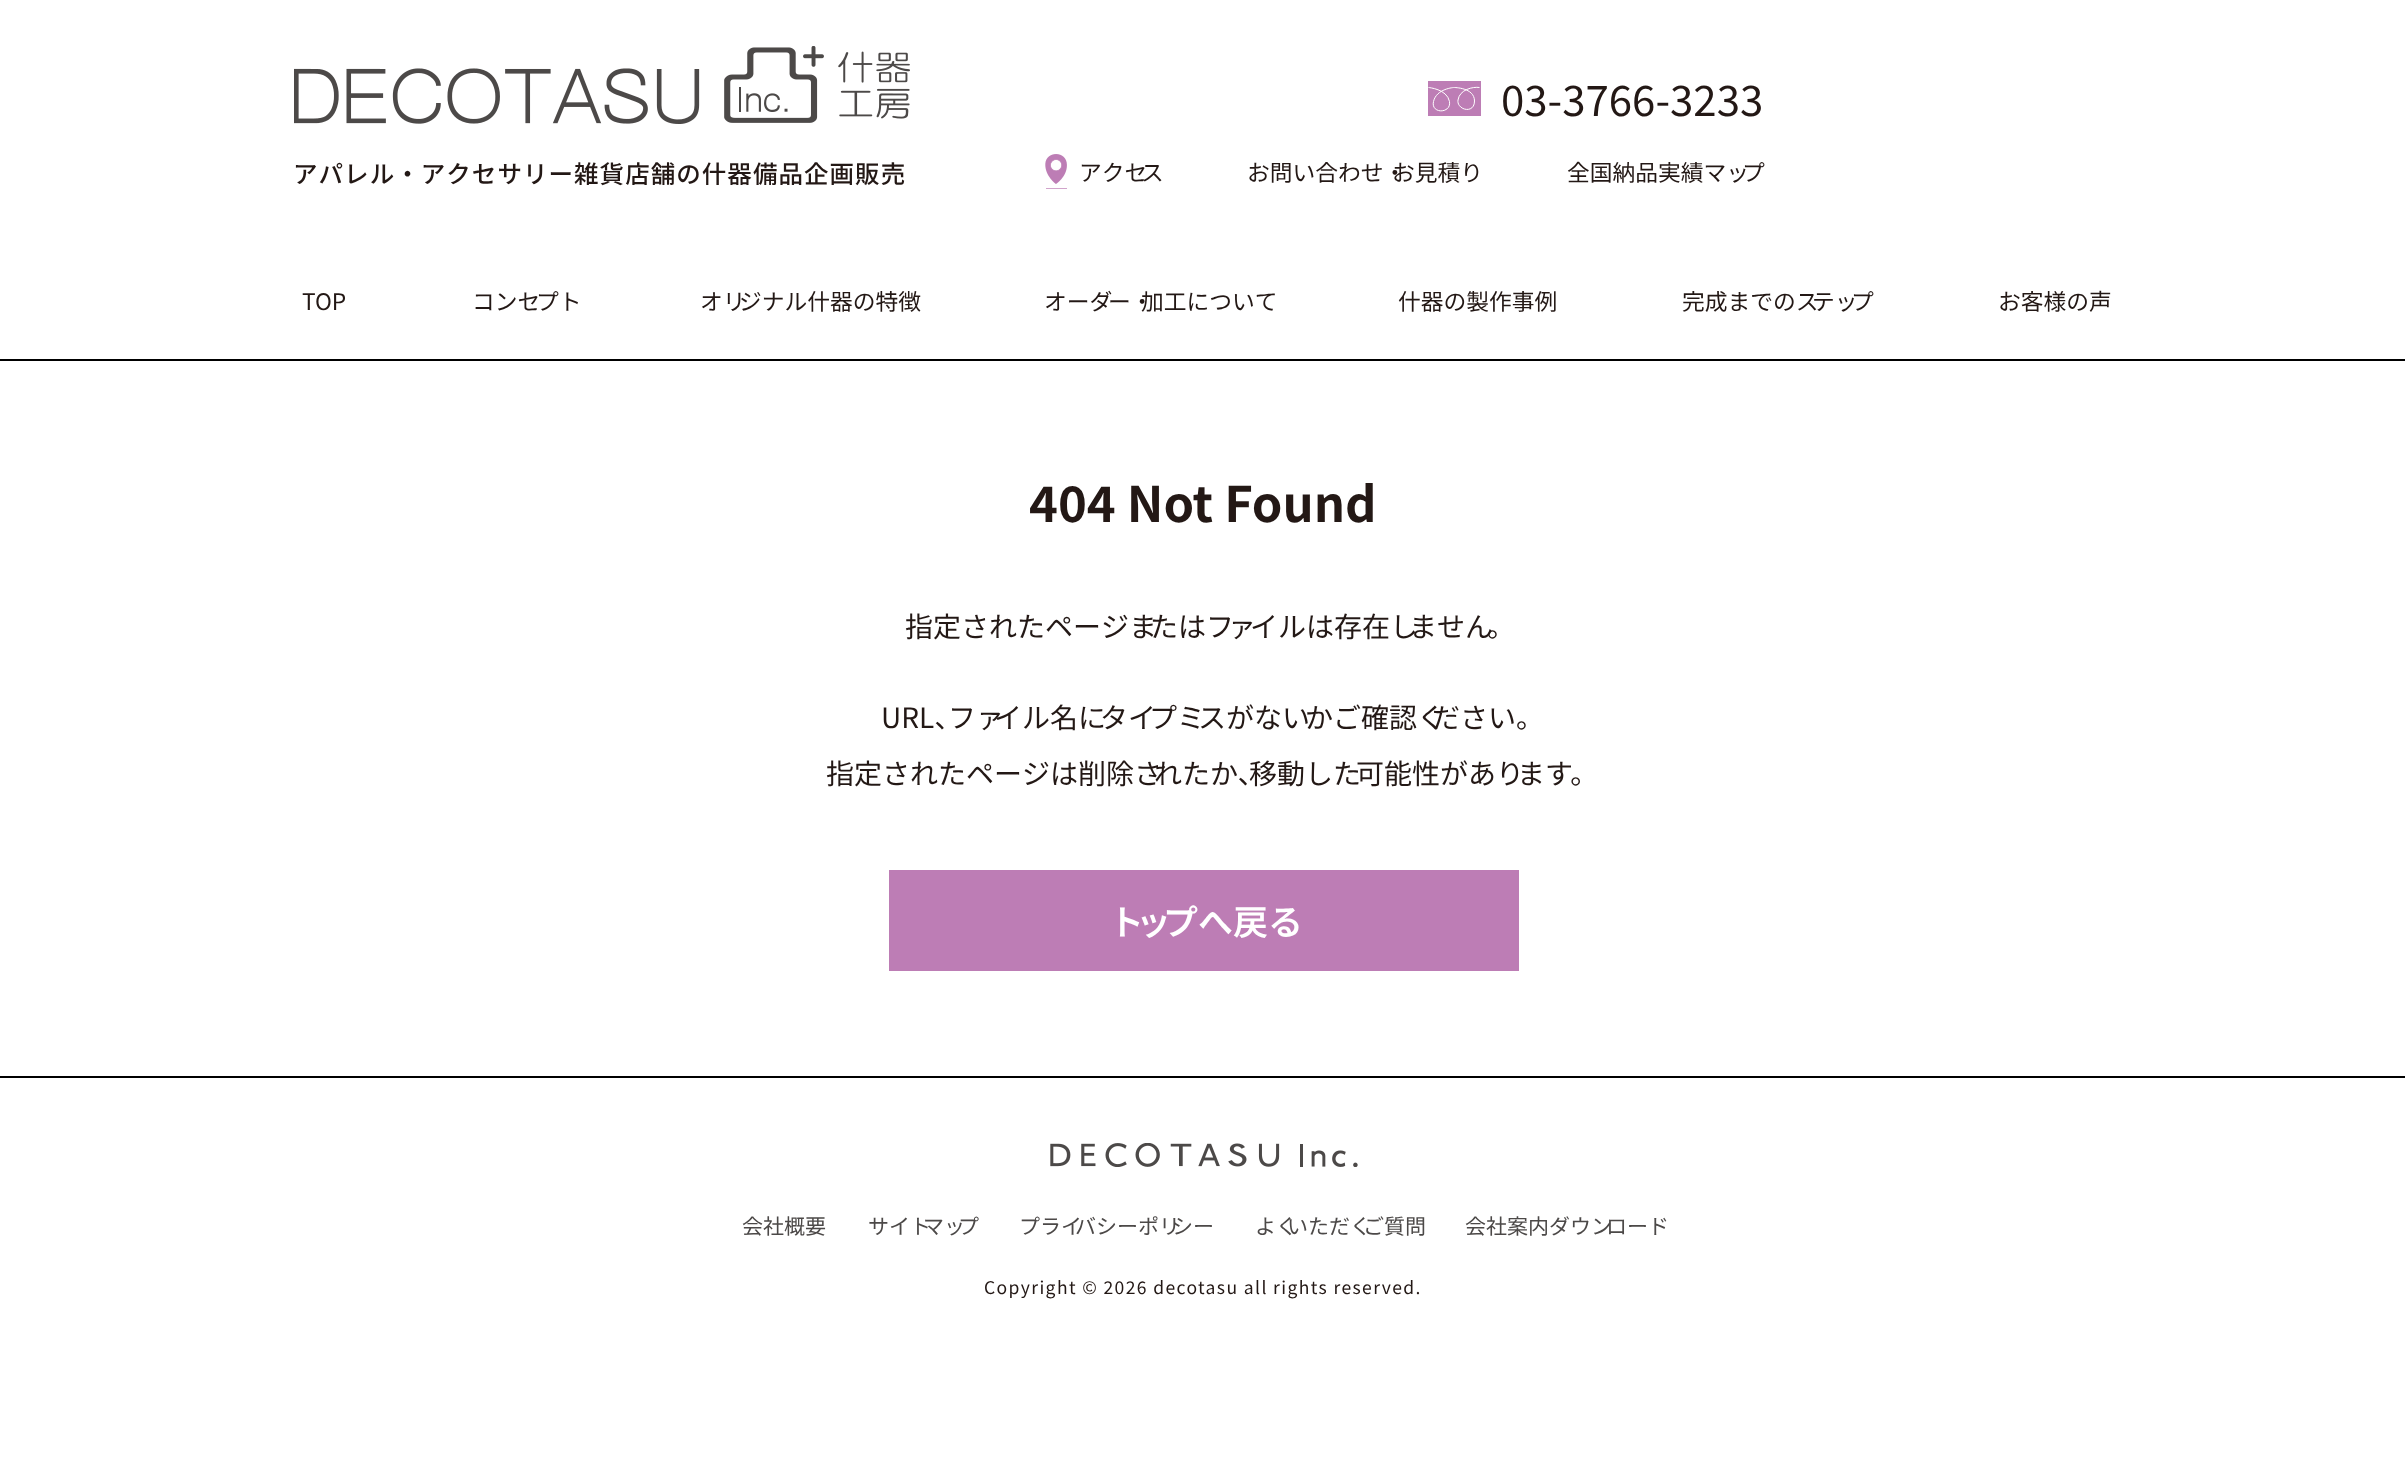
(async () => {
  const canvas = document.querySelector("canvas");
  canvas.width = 2405;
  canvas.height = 1457;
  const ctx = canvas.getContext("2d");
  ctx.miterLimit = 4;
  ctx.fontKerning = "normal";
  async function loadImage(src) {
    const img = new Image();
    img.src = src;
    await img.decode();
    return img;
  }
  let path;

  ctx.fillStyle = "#ffffff";
  ctx.fillRect(0, 0, 2405, 1457);
  ctx.drawImage(await loadImage("img/1.png"), 294, 46, 616, 78);
  ctx.fillStyle = "#bd7db5";
  ctx.fillRect(1428, 81, 53, 35);
  path = new Path2D("M1428.5 87.5C1428.5 87.5 1447 89 1449.5 101.5C1451.5 114 1430.5 114 1433.5 101.5C1436.5 88.5 1454 87.5 1454 87.5C1454 87.5 1474.5 87.5 1474.5 101C1474.5 114.5 1456.5 110 1458 100C1459.5 89.5 1473 86.5 1479.5 87.5");
  ctx.strokeStyle = "#ffffff";
  ctx.stroke(path);
  ctx.drawImage(await loadImage("img/2.png"), 1045, 154, 22, 35);
  for (const [x, y, w, h, color] of [
    [0, 359, 2405, 2, "#000000"],
    [889, 870, 630, 101, "#bd7db5"],
    [0, 1076, 2405, 2, "#000000"],
  ]) {
    ctx.fillStyle = color;
    ctx.fillRect(x, y, w, h);
  }
  ctx.drawImage(await loadImage("img/3.png"), 1050, 1143, 308, 24);
  ctx.font = "42px Noto Sans JP";
  ctx.fillStyle = "#231815";
  ctx.fillText("03-3766-3233", 1501, 116);
  ctx.letterSpacing = "1.05px";
  ctx.font = "500 24.5px Noto Sans JP";
  ctx.fillText("アパレル・アクセサリー雑貨店舗の什器備品企画販売", 293, 183);
  ctx.letterSpacing = "0px";
  ctx.font = "22.75px Noto Sans JP";
  for (const [text, x, y] of [
    ["アクセ", 1079, 181],
    ["ス", 1141, 181],
    ["お問い合わせ・", 1247, 181],
    ["お見積り", 1392, 181],
    ["全国納品実績マッ", 1567, 181],
    ["プ", 1742, 181],
    ["TOP", 302, 310],
    ["コンセ", 472, 310],
    ["プト", 536, 310],
    ["オリ", 700, 310],
    ["ジナル什器の特徴", 739, 310],
    ["オーダ", 1044, 310],
    ["ー・", 1108, 310],
    ["加工について", 1141, 310],
    ["什器の製作事例", 1398, 310],
    ["完成までのス", 1682, 310],
    ["テッ", 1812, 310],
    ["プ", 1851, 310],
    ["お客様の声", 1998, 310],
  ]) {
    ctx.fillText(text, x, y);
  }
  ctx.font = "bold 49px Noto Sans JP";
  ctx.fillText("404 Not Found", 1029, 522);
  ctx.font = "28px Noto Sans JP";
  for (const [text, x, y] of [
    ["指定されたページま", 905, 637],
    ["たはフ", 1150, 637],
    ["ァ", 1228, 637],
    ["イルは存在し", 1250, 637],
    ["ません", 1409, 637],
    ["。", 1487, 637],
    ["URL、", 881, 728],
    ["ファ", 948, 728],
    ["イル名に", 994, 728],
    ["タイ", 1100, 728],
    ["プミ", 1149, 728],
    ["スがない", 1198, 728],
    ["かご確認く", 1305, 728],
    ["ださい。", 1432, 728],
    ["指定されたページは削除さ", 826, 784],
    ["れたか、", 1154, 784],
    ["移動した", 1249, 784],
    ["可能性があり", 1356, 784],
    ["ます。", 1517, 784],
  ]) {
    ctx.fillText(text, x, y);
  }
  ctx.font = "600 35px Noto Sans JP";
  ctx.fillStyle = "#ffffff";
  ctx.fillText("ト", 1109, 935);
  ctx.fillText("ッ", 1136, 935);
  ctx.fillText("プへ戻る", 1163, 935);
  ctx.font = "21px Noto Sans JP";
  ctx.fillStyle = "#4c4948";
  for (const [text, x, y] of [
    ["会社概要", 742, 1234],
    ["サイト", 868, 1234],
    ["マッ", 923, 1234],
    ["プ", 958, 1234],
    ["プライ", 1019, 1234],
    ["バシーポリ", 1075, 1234],
    ["シー", 1172, 1234],
    ["よく", 1255, 1234],
    ["いただく", 1287, 1234],
    ["ご質問", 1363, 1234],
    ["会社案内ダウン", 1465, 1234],
    ["ロード", 1606, 1234],
  ]) {
    ctx.fillText(text, x, y);
  }
  ctx.letterSpacing = "1.4px";
  ctx.font = "17.5px Noto Sans JP";
  ctx.fillStyle = "#231815";
  ctx.fillText("Copyright © 2026 decotasu all rights reserved.", 984, 1294);
})();
